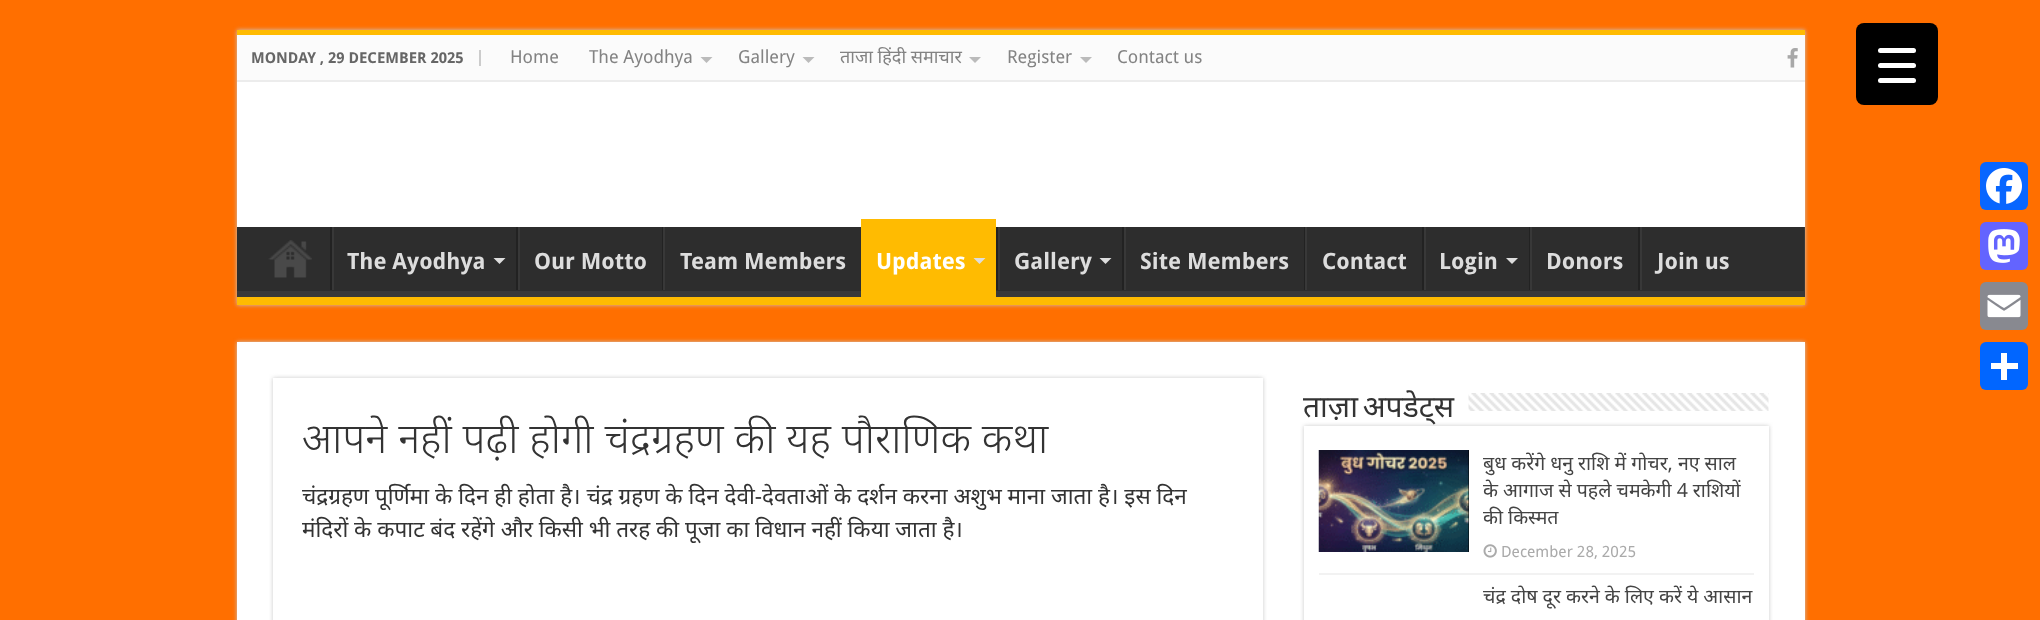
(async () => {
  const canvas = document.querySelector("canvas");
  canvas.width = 2040;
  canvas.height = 620;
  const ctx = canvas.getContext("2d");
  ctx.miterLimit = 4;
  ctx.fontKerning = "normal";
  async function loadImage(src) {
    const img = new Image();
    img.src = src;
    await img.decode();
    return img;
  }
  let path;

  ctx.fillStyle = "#ff6f00";
  ctx.fillRect(0, 0, 2040, 620);
  ctx.fillStyle = "#cacaca";
  ctx.filter = "blur(2px)";
  ctx.beginPath();
  ctx.rect(237, 30, 1568, 275);
  ctx.fill();
  ctx.filter = "none";
  for (const [x, y, w, h, color] of [
    [237, 82, 1568, 145, "#ffffff"],
    [237, 30, 1568, 5, "#ffbb01"],
    [237, 35, 1568, 45, "#fbfbfb"],
    [237, 80, 1568, 2, "#ececec"],
    [479, 50, 2, 16, "#cccccc"],
  ]) {
    ctx.fillStyle = color;
    ctx.fillRect(x, y, w, h);
  }
  ctx.fillStyle = "#bbbbbb";
  path = new Path2D("M700.5 57H712.5L706.5 63Z");
  ctx.fill(path);
  path = new Path2D("M802.5 57H814.5L808.5 63Z");
  ctx.fill(path);
  path = new Path2D("M969 57H981L975 63Z");
  ctx.fill(path);
  path = new Path2D("M1080 57H1092L1086 63Z");
  ctx.fill(path);
  ctx.drawImage(await loadImage("img/1.png"), 1787, 48, 11, 20);
  ctx.fillStyle = "#2d2d2d";
  ctx.fillRect(237, 227, 1567, 64);
  ctx.save();
  ctx.beginPath();
  ctx.rect(237, 227, 1568, 70);
  ctx.clip();
  ctx.fillStyle = "#393939";
  path = new Path2D("M88 78H1953V446H88ZM236 218H1803C1804 218 1804 218 1804 219V290C1804 290 1804 291 1803 291H236C235 291 234 290 234 290V219C234 218 235 218 236 218Z");
  ctx.fill(path, "evenodd");
  ctx.restore();
  ctx.fillStyle = "#ffbb01";
  ctx.fillRect(237, 297, 1568, 8);
  ctx.drawImage(await loadImage("img/2.png"), 268, 240, 44, 38);
  ctx.fillStyle = "#222222";
  ctx.fillRect(330, 227, 2, 63);
  ctx.fillStyle = "#383838";
  ctx.fillRect(332, 227, 2, 63);
  ctx.fillStyle = "#dddddd";
  path = new Path2D("M493.5 258H505.5L499.5 264Z");
  ctx.fill(path);
  for (const [x, y, w, h, color] of [
    [516, 227, 2, 63, "#222222"],
    [518, 227, 2, 63, "#383838"],
    [662, 227, 1, 63, "#222222"],
    [663, 227, 2, 63, "#383838"],
    [861, 219, 135, 78, "#ffbb01"],
  ]) {
    ctx.fillStyle = color;
    ctx.fillRect(x, y, w, h);
  }
  ctx.fillStyle = "#dddddd";
  path = new Path2D("M973.5 258H985.5L979.5 264Z");
  ctx.fill(path);
  ctx.fillStyle = "#222222";
  ctx.fillRect(996, 227, 2, 63);
  ctx.fillStyle = "#383838";
  ctx.fillRect(998, 227, 2, 63);
  ctx.fillStyle = "#dddddd";
  path = new Path2D("M1099.5 258H1111.5L1105.5 264Z");
  ctx.fill(path);
  for (const [x, y, w, h, color] of [
    [1122, 227, 2, 63, "#222222"],
    [1124, 227, 2, 63, "#383838"],
    [1304, 227, 1, 63, "#222222"],
    [1305, 227, 2, 63, "#383838"],
    [1422, 227, 2, 63, "#222222"],
    [1424, 227, 2, 63, "#383838"],
  ]) {
    ctx.fillStyle = color;
    ctx.fillRect(x, y, w, h);
  }
  ctx.fillStyle = "#dddddd";
  path = new Path2D("M1506 258H1518L1512 264Z");
  ctx.fill(path);
  for (const [x, y, w, h, color] of [
    [1529, 227, 1, 63, "#222222"],
    [1530, 227, 2, 63, "#383838"],
    [1638, 227, 2, 63, "#222222"],
    [1640, 227, 2, 63, "#383838"],
  ]) {
    ctx.fillStyle = color;
    ctx.fillRect(x, y, w, h);
  }
  ctx.fillStyle = "#cacaca";
  ctx.filter = "blur(2px)";
  ctx.beginPath();
  ctx.rect(237, 342, 1568, 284);
  ctx.fill();
  ctx.filter = "none";
  ctx.fillStyle = "#ffffff";
  ctx.fillRect(237, 342, 1568, 278);
  ctx.save();
  path = new Path2D("M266 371H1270V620H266ZM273 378H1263V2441H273Z");
  ctx.clip(path, "evenodd");
  ctx.fillStyle = "#cacaca";
  ctx.filter = "blur(2px)";
  ctx.beginPath();
  ctx.rect(273, 378, 990, 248);
  ctx.fill();
  ctx.filter = "none";
  ctx.restore();
  ctx.drawImage(await loadImage("img/3.png"), 1468, 393, 301, 18);
  ctx.fillStyle = "#cacaca";
  ctx.filter = "blur(2px)";
  ctx.beginPath();
  ctx.rect(1304, 426, 465, 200);
  ctx.fill();
  ctx.filter = "none";
  for (const [x, y, w, h, color] of [
    [1304, 426, 465, 194, "#ffffff"],
    [1319, 573, 435, 2, "#f2f2f2"],
    [1468, 450, 1, 102, "#000000"],
  ]) {
    ctx.fillStyle = color;
    ctx.fillRect(x, y, w, h);
  }
  ctx.drawImage(await loadImage("img/4.png"), 1318, 450, 151, 102);
  ctx.drawImage(await loadImage("img/5.png"), 1483, 544, 14, 14);
  ctx.beginPath();
  ctx.roundRect(1856, 23, 82, 82, 8);
  ctx.fill();
  ctx.fillStyle = "#ffffff";
  ctx.beginPath();
  ctx.roundRect(1878, 63, 38, 5, 2.5);
  ctx.fill();
  ctx.beginPath();
  ctx.roundRect(1878, 48, 38, 5, 2.5);
  ctx.fill();
  ctx.beginPath();
  ctx.roundRect(1878, 78, 38, 5, 2.5);
  ctx.fill();
  ctx.fillStyle = "#0866ff";
  ctx.beginPath();
  ctx.roundRect(1980, 162, 48, 48, 6);
  ctx.fill();
  ctx.drawImage(await loadImage("img/6.png"), 1986, 168, 36, 36);
  ctx.fillStyle = "#6364ff";
  ctx.beginPath();
  ctx.roundRect(1980, 222, 48, 48, 6);
  ctx.fill();
  ctx.drawImage(await loadImage("img/7.png"), 1988, 229, 32, 34);
  ctx.fillStyle = "#888990";
  ctx.beginPath();
  ctx.roundRect(1980, 282, 48, 48, 6);
  ctx.fill();
  ctx.drawImage(await loadImage("img/8.png"), 1987, 294, 34, 24);
  ctx.fillStyle = "#0166ff";
  ctx.beginPath();
  ctx.roundRect(1980, 342, 48, 48, 6);
  ctx.fill();
  ctx.fillStyle = "#ffffff";
  ctx.fillRect(2001, 353, 6, 27);
  ctx.fillRect(1991, 363, 27, 6);
  ctx.font = "bold 15px Droid Sans";
  ctx.fillStyle = "#666666";
  ctx.fillText("MONDAY , 29 DECEMBER 2025", 251, 63);
  ctx.font = "18px Droid Sans";
  ctx.fillStyle = "#838383";
  for (const [text, x, y] of [
    ["Home", 510, 63],
    ["The Ayodhya", 589, 63],
    ["Gallery", 738, 63],
  ]) {
    ctx.fillText(text, x, y);
  }
  ctx.font = "18px Noto Sans";
  ctx.fillText("ताजा हिंदी समाचार", 840, 63);
  ctx.font = "18px Droid Sans";
  ctx.fillText("Register", 1007, 63);
  ctx.fillText("Contact us", 1117, 63);
  ctx.font = "bold 22.5px Droid Sans";
  ctx.fillStyle = "#dddddd";
  for (const [text, x, y] of [
    ["The Ayodhya", 347, 269],
    ["Our Motto", 534, 269],
    ["Team Members", 680, 269],
  ]) {
    ctx.fillText(text, x, y);
  }
  ctx.fillStyle = "#ffffff";
  ctx.fillText("Updates", 876, 269);
  ctx.fillStyle = "#dddddd";
  for (const [text, x, y] of [
    ["Gallery", 1014, 269],
    ["Site Members", 1140, 269],
    ["Contact", 1322, 269],
    ["Login", 1439, 269],
    ["Donors", 1546, 269],
    ["Join us", 1657, 269],
  ]) {
    ctx.fillText(text, x, y);
  }
  ctx.font = "300 42px Noto Sans";
  ctx.fillStyle = "#333333";
  ctx.fillText("आपने नहीं पढ़ी होगी चंद्रग्रहण की यह पौराणिक कथा", 302, 453);
  ctx.font = "22.5px Noto Sans";
  ctx.fillText("चंद्रग्रहण पूर्णिमा के दिन ही होता है। चंद्र ग्रहण के दिन देवी-देवताओं के दर्शन करना अशुभ माना जाता है। इस दिन", 302, 504);
  ctx.fillText("मंदिरों के कपाट बंद रहेंगे और किसी भी तरह की पूजा का विधान नहीं किया जाता है।", 302, 537);
  ctx.wordSpacing = "-3px";
  ctx.font = "30px Noto Sans";
  ctx.fillText("ताज़ा अपडेट्स", 1303, 417);
  ctx.wordSpacing = "0px";
  ctx.font = "19.5px Noto Sans";
  ctx.fillStyle = "#444444";
  for (const [text, x, y] of [
    ["बुध करेंगे धनु राशि में गोचर, नए साल", 1483, 470],
    ["के आगाज से पहले चमकेगी 4 राशियों", 1483, 497],
    ["की किस्मत", 1483, 524],
  ]) {
    ctx.fillText(text, x, y);
  }
  ctx.font = "15.5px Droid Sans";
  ctx.fillStyle = "#aaaaaa";
  ctx.fillText("December 28, 2025", 1501, 557);
  ctx.font = "19.5px Noto Sans";
  ctx.fillStyle = "#444444";
  ctx.fillText("चंद्र दोष दूर करने के लिए करें ये आसान", 1483, 603);
})();
